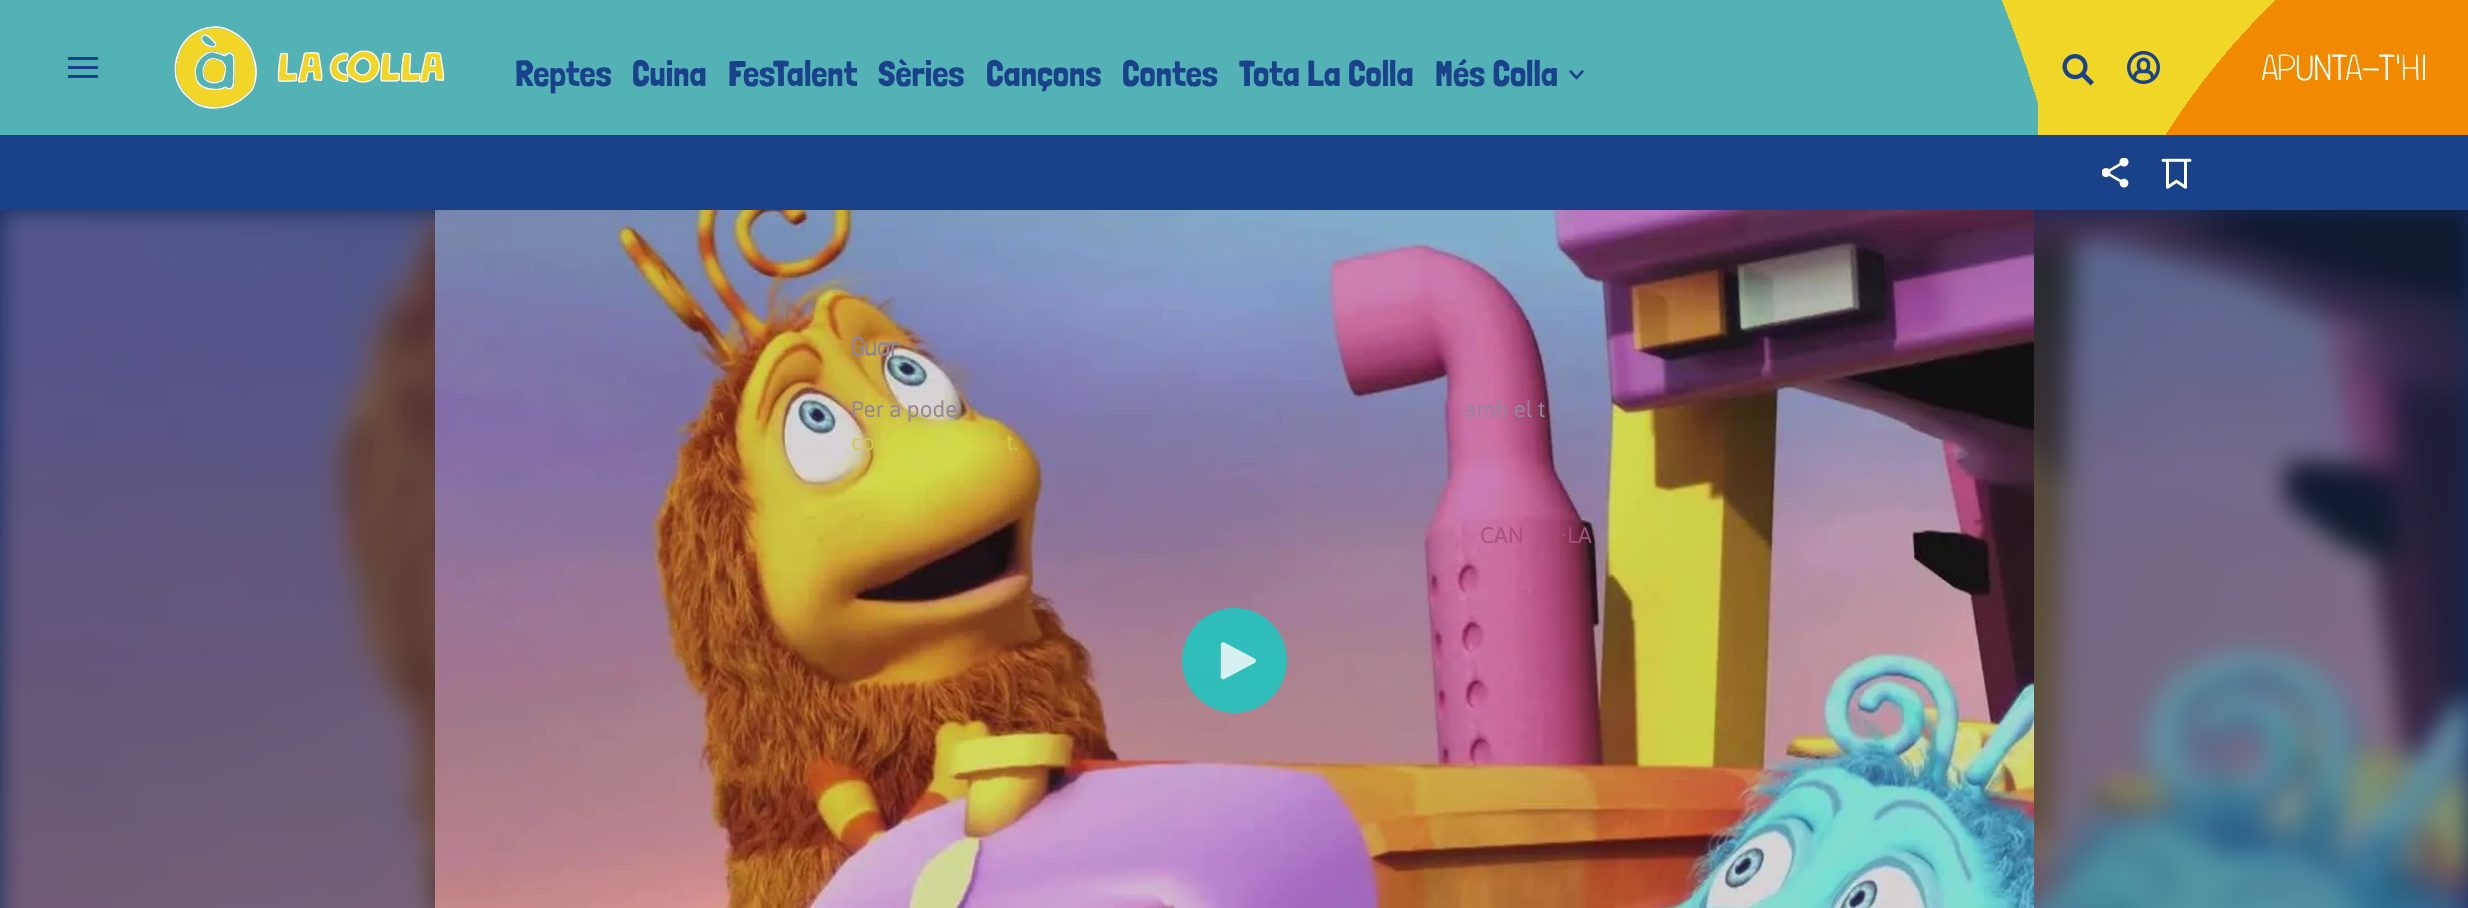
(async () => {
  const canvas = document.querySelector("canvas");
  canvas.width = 2468;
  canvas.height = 908;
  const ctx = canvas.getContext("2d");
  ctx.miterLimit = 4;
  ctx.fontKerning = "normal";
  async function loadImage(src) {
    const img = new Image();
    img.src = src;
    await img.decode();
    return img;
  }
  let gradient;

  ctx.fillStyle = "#1a428a";
  ctx.fillRect(0, 0, 2468, 908);
  gradient = ctx.createRadialGradient(2799, 540, 0, 2799, 540, 752);
  gradient.addColorStop(1, "#f18a00");
  gradient.addColorStop(1, "#f0d727");
  ctx.fillStyle = gradient;
  ctx.fillRect(1995, 0, 473, 135);
  gradient = ctx.createRadialGradient(887, 450, 0, 887, 450, 1202);
  gradient.addColorStop(1, "#53b2b6");
  gradient.addColorStop(1, "rgba(83, 178, 182, 0)");
  ctx.fillStyle = gradient;
  ctx.fillRect(0, 0, 2038, 135);
  for (const [x, y, w, h, color] of [
    [68, 57, 30, 3, "#1a428a"],
    [68, 66, 30, 3, "#1a428a"],
    [68, 75, 30, 3, "#1a428a"],
  ]) {
    ctx.fillStyle = color;
    ctx.fillRect(x, y, w, h);
  }
  ctx.drawImage(await loadImage("img/1.png"), 174, 26, 271, 83);
  ctx.drawImage(await loadImage("img/2.png"), 1569, 69, 15, 11);
  ctx.drawImage(await loadImage("img/3.png"), 2062, 54, 32, 32);
  ctx.drawImage(await loadImage("img/4.png"), 2127, 51, 33, 33);
  ctx.fillStyle = "#112b5d";
  ctx.fillRect(0, 210, 2468, 698);
  ctx.drawImage(await loadImage("img/5.png"), 0, 210, 2468, 698);
  ctx.drawImage(await loadImage("img/6.png"), 435, 210, 1599, 698);
  ctx.fillStyle = "rgba(18, 205, 198, 0.8)";
  ctx.beginPath();
  ctx.arc(1234.5, 660.5, 52.5, 0, Math.PI * 2);
  ctx.fill();
  ctx.drawImage(await loadImage("img/7.png"), 1220, 642, 36, 38);
  ctx.drawImage(await loadImage("img/8.png"), 2102, 158, 27, 30);
  ctx.drawImage(await loadImage("img/9.png"), 2161, 158, 31, 31);
  ctx.font = "36px Londrina Solid";
  ctx.fillStyle = "#1a428a";
  for (const [text, x, y] of [
    ["Reptes", 515, 86],
    ["Cuina", 632, 86],
    ["FesTalent", 728, 86],
    ["Sèries", 878, 86],
    ["Cançons", 986, 86],
    ["Contes", 1122, 86],
    ["Tota La Colla", 1239, 86],
    ["Més Colla", 1435, 86],
  ]) {
    ctx.fillText(text, x, y);
  }
  ctx.font = "100 36px Londrina Solid";
  ctx.fillStyle = "#ffffff";
  ctx.fillText("APUNTA-T'HI", 2262, 80);
  ctx.font = "300 28px Londrina Solid";
  ctx.fillStyle = "#938592";
  ctx.fillText("Guar", 851, 356);
  ctx.font = "22.5px Asap";
  ctx.fillStyle = "#95849d";
  ctx.fillText("Per a pode", 851, 417);
  ctx.fillText("amb el t", 1464, 417);
  ctx.fillStyle = "#cfcc4e";
  ctx.fillText("co", 851, 450);
  ctx.fillText("t.", 1006, 450);
  ctx.fillStyle = "#a8527d";
  ctx.fillText("CAN", 1480, 543);
  ctx.fillText("·LA", 1561, 543);
})();
